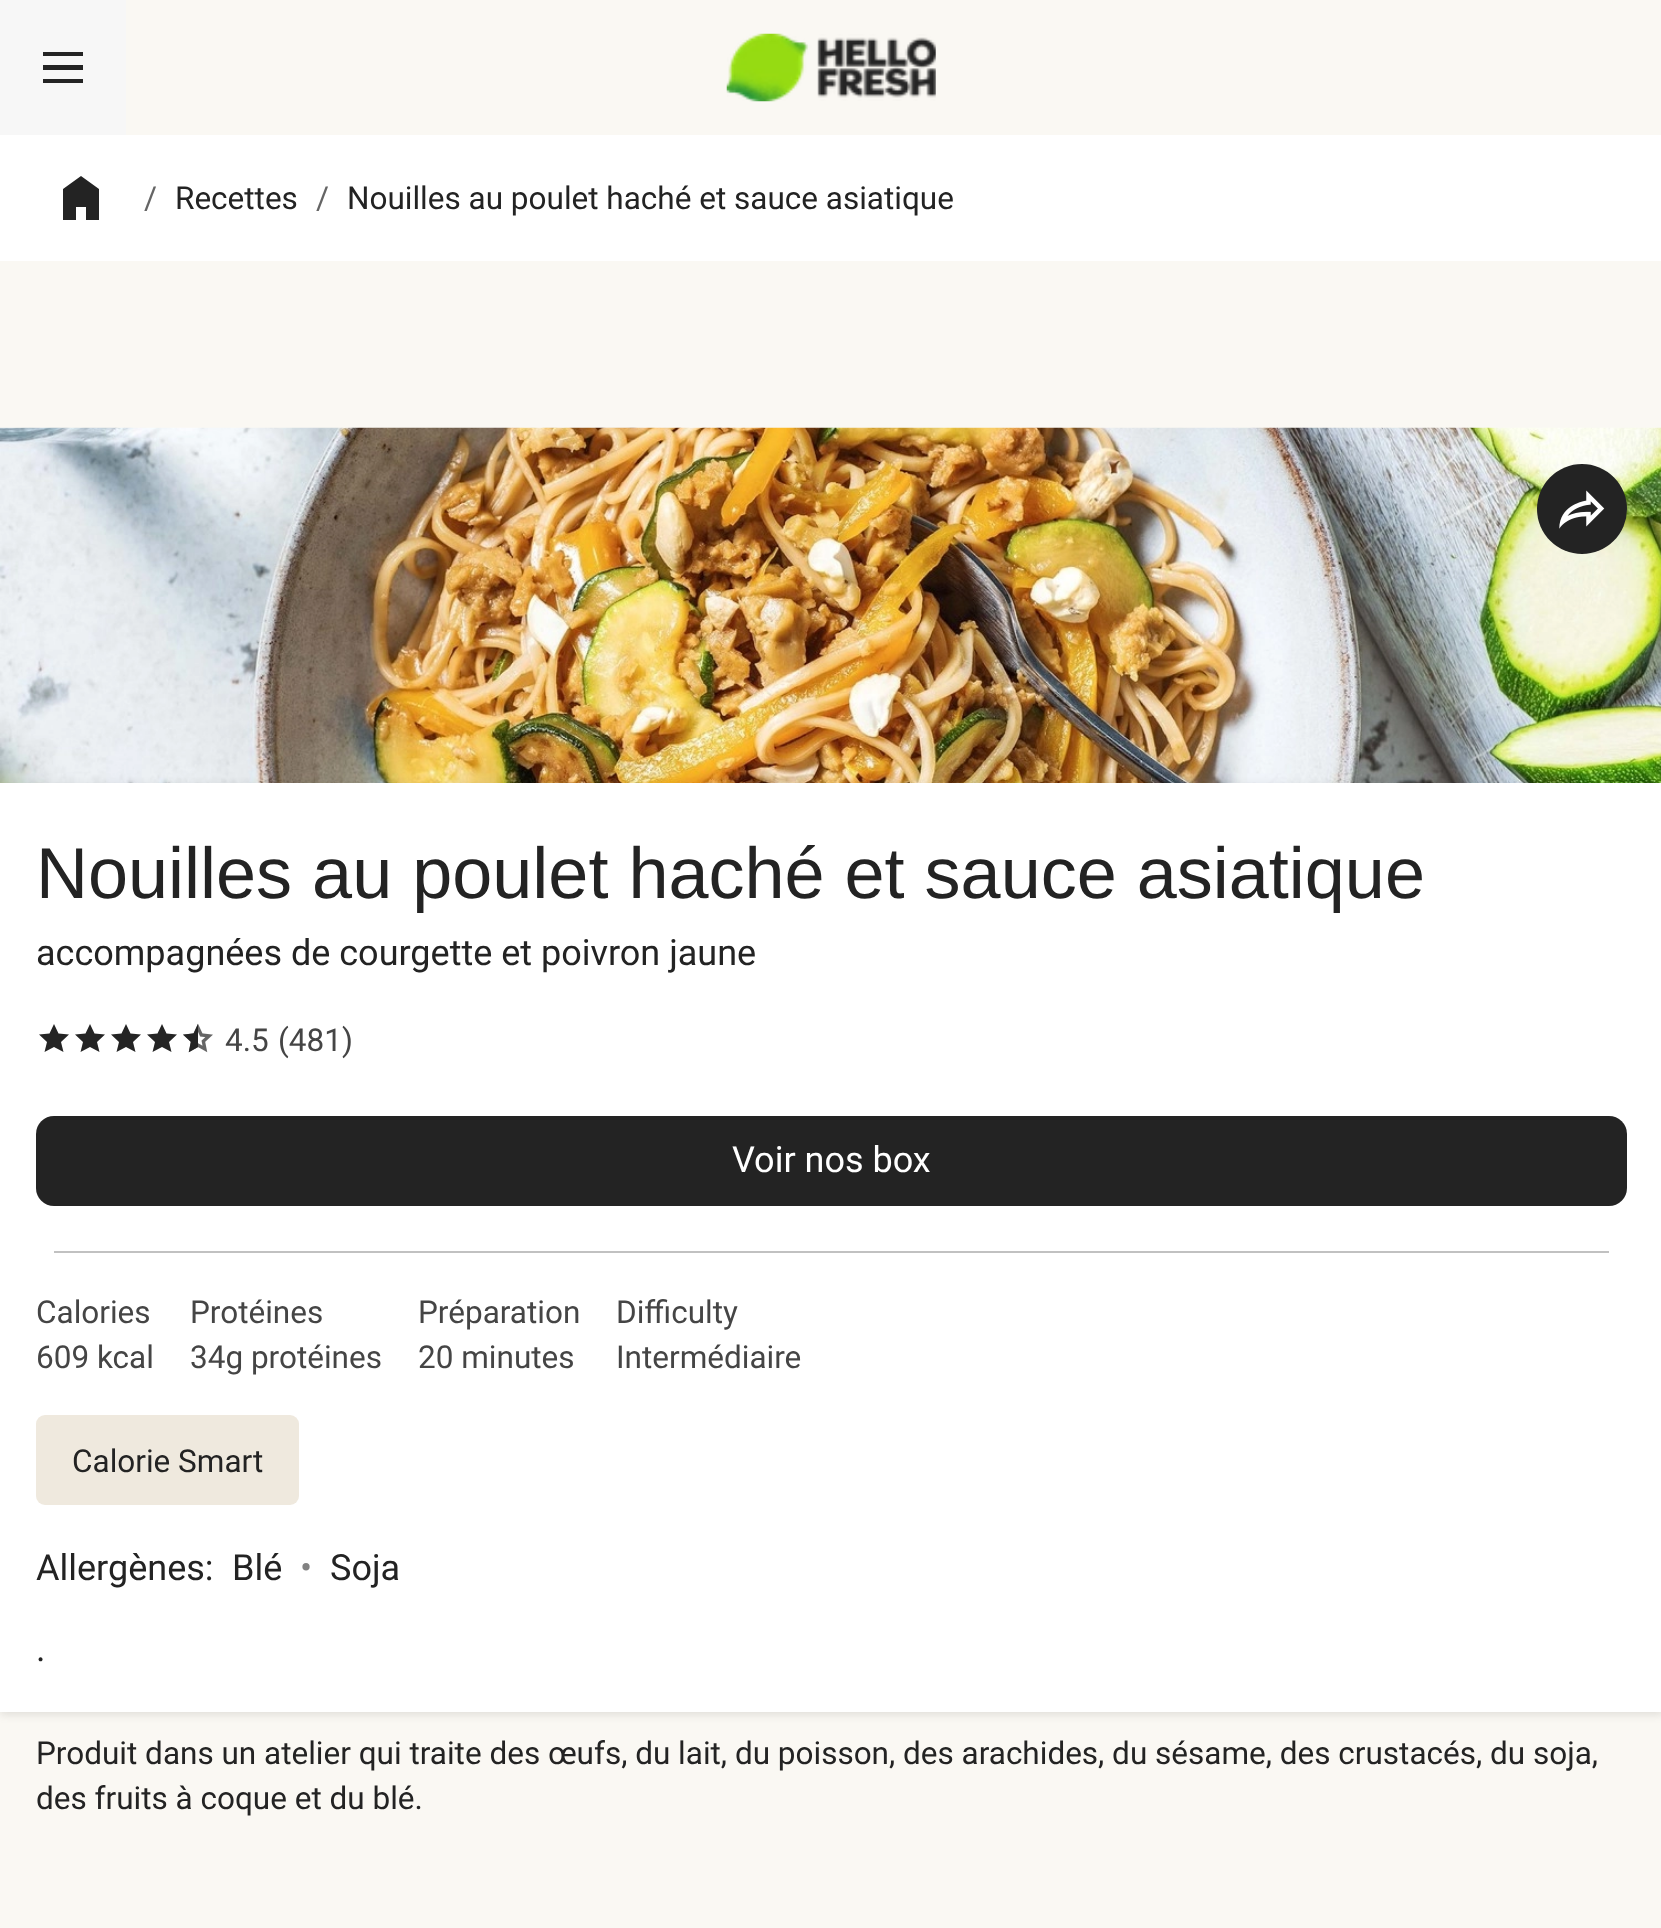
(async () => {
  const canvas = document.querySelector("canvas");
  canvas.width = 1661;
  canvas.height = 1928;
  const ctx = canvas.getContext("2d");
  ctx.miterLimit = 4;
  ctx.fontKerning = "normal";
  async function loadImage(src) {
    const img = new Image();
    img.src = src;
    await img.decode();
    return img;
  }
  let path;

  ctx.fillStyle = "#faf8f3";
  ctx.fillRect(0, 0, 1661, 1928);
  ctx.fillStyle = "#f7f7f7";
  ctx.fillRect(0, 0, 126, 135);
  ctx.fillStyle = "#242424";
  path = new Path2D("M43 52H83V56H43ZM43 65H83V70H43ZM83 79H43V83H83Z");
  ctx.fill(path);
  ctx.drawImage(await loadImage("img/1.png"), 726, 33, 210, 69);
  ctx.fillStyle = "#ffffff";
  ctx.fillRect(0, 135, 1661, 126);
  ctx.fillStyle = "#232323";
  path = new Path2D("M81 176L99 189V220H86V207H76V220H63V189Z");
  ctx.fill(path);
  ctx.drawImage(await loadImage("img/2.png"), 0, 427, 1661, 356);
  ctx.beginPath();
  ctx.arc(1582, 509, 45, 0, Math.PI * 2);
  ctx.fill();
  ctx.drawImage(await loadImage("img/3.png"), 1559, 490, 46, 39);
  ctx.fillStyle = "rgba(0, 0, 0, 0.1)";
  ctx.filter = "blur(4.5px)";
  ctx.beginPath();
  ctx.rect(0, 785, 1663, 930);
  ctx.fill();
  ctx.filter = "none";
  ctx.fillStyle = "#ffffff";
  ctx.fillRect(0, 783, 1661, 929);
  ctx.fillStyle = "#242424";
  path = new Path2D("M54 1024L58.5 1033.5L69 1034.5L61 1042L63.5 1052L54 1047L44.5 1052L47 1042L39 1034.5L49.5 1033.5Z");
  ctx.fill(path);
  path = new Path2D("M90 1024L94.5 1033.5L105 1034.5L97 1042L99.5 1052L90 1047L80.5 1052L83 1042L75 1034.5L85.5 1033.5Z");
  ctx.fill(path);
  path = new Path2D("M126 1024L130.5 1033.5L141 1034.5L133 1042L135.5 1052L126 1047L116.5 1052L119 1042L111 1034.5L121.5 1033.5Z");
  ctx.fill(path);
  path = new Path2D("M162 1024L166.5 1033.5L177 1034.5L169 1042L171.5 1052L162 1047L152.5 1052L155 1042L147 1034.5L157.5 1033.5Z");
  ctx.fill(path);
  ctx.drawImage(await loadImage("img/4.png"), 183, 1023, 30, 30);
  ctx.fillStyle = "#232323";
  ctx.beginPath();
  ctx.roundRect(36, 1116, 1591, 90, 18);
  ctx.fill();
  ctx.fillStyle = "#c1c1c1";
  ctx.fillRect(54, 1251, 1555, 2);
  ctx.fillStyle = "#efe9de";
  ctx.beginPath();
  ctx.roundRect(36, 1415, 263, 90, 9);
  ctx.fill();
  ctx.font = "31.5px Roboto";
  ctx.fillStyle = "#656565";
  ctx.fillText("/", 144, 209);
  ctx.fillStyle = "#232323";
  ctx.fillText("Recettes", 175, 209);
  ctx.fillStyle = "#656565";
  ctx.fillText("/", 316, 209);
  ctx.fillStyle = "#232323";
  ctx.fillText("Nouilles au poulet haché et sauce asiatique", 347, 209);
  ctx.font = "72px Liberation Sans";
  ctx.fillText("Nouilles au poulet haché et sauce asiatique", 36, 898);
  ctx.font = "36px Roboto";
  ctx.fillText("accompagnées de courgette et poivron jaune", 36, 965);
  ctx.font = "31.5px Roboto";
  ctx.fillStyle = "#454545";
  ctx.fillText("4.5", 225, 1051);
  ctx.fillText("(481)", 278, 1051);
  ctx.font = "36px Roboto";
  ctx.fillStyle = "#ffffff";
  ctx.fillText("Voir nos box", 732, 1172);
  ctx.font = "31.5px Roboto";
  ctx.fillStyle = "#454545";
  for (const [text, x, y] of [
    ["Calories", 36, 1323],
    ["609 kcal", 36, 1368],
    ["Protéines", 190, 1323],
    ["34g protéines", 190, 1368],
    ["Préparation", 418, 1323],
    ["20 minutes", 418, 1368],
    ["Difficulty", 616, 1323],
    ["Intermédiaire", 616, 1368],
  ]) {
    ctx.fillText(text, x, y);
  }
  ctx.fillStyle = "#232323";
  ctx.fillText("Calorie Smart", 72, 1472);
  ctx.font = "36px Roboto";
  ctx.fillText("Allergènes:", 36, 1580);
  ctx.fillText("Blé", 232, 1580);
  ctx.fillStyle = "#828282";
  ctx.fillText("•", 300, 1580);
  ctx.fillStyle = "#232323";
  ctx.fillText("Soja", 330, 1580);
  ctx.fillText(".", 36, 1661);
  ctx.font = "31.5px Roboto";
  ctx.fillText("Produit dans un atelier qui traite des œufs, du lait, du poisson, des arachides, du sésame, des crustacés, du soja,", 36, 1764);
  ctx.fillText("des fruits à coque et du blé.", 36, 1809);
})();
